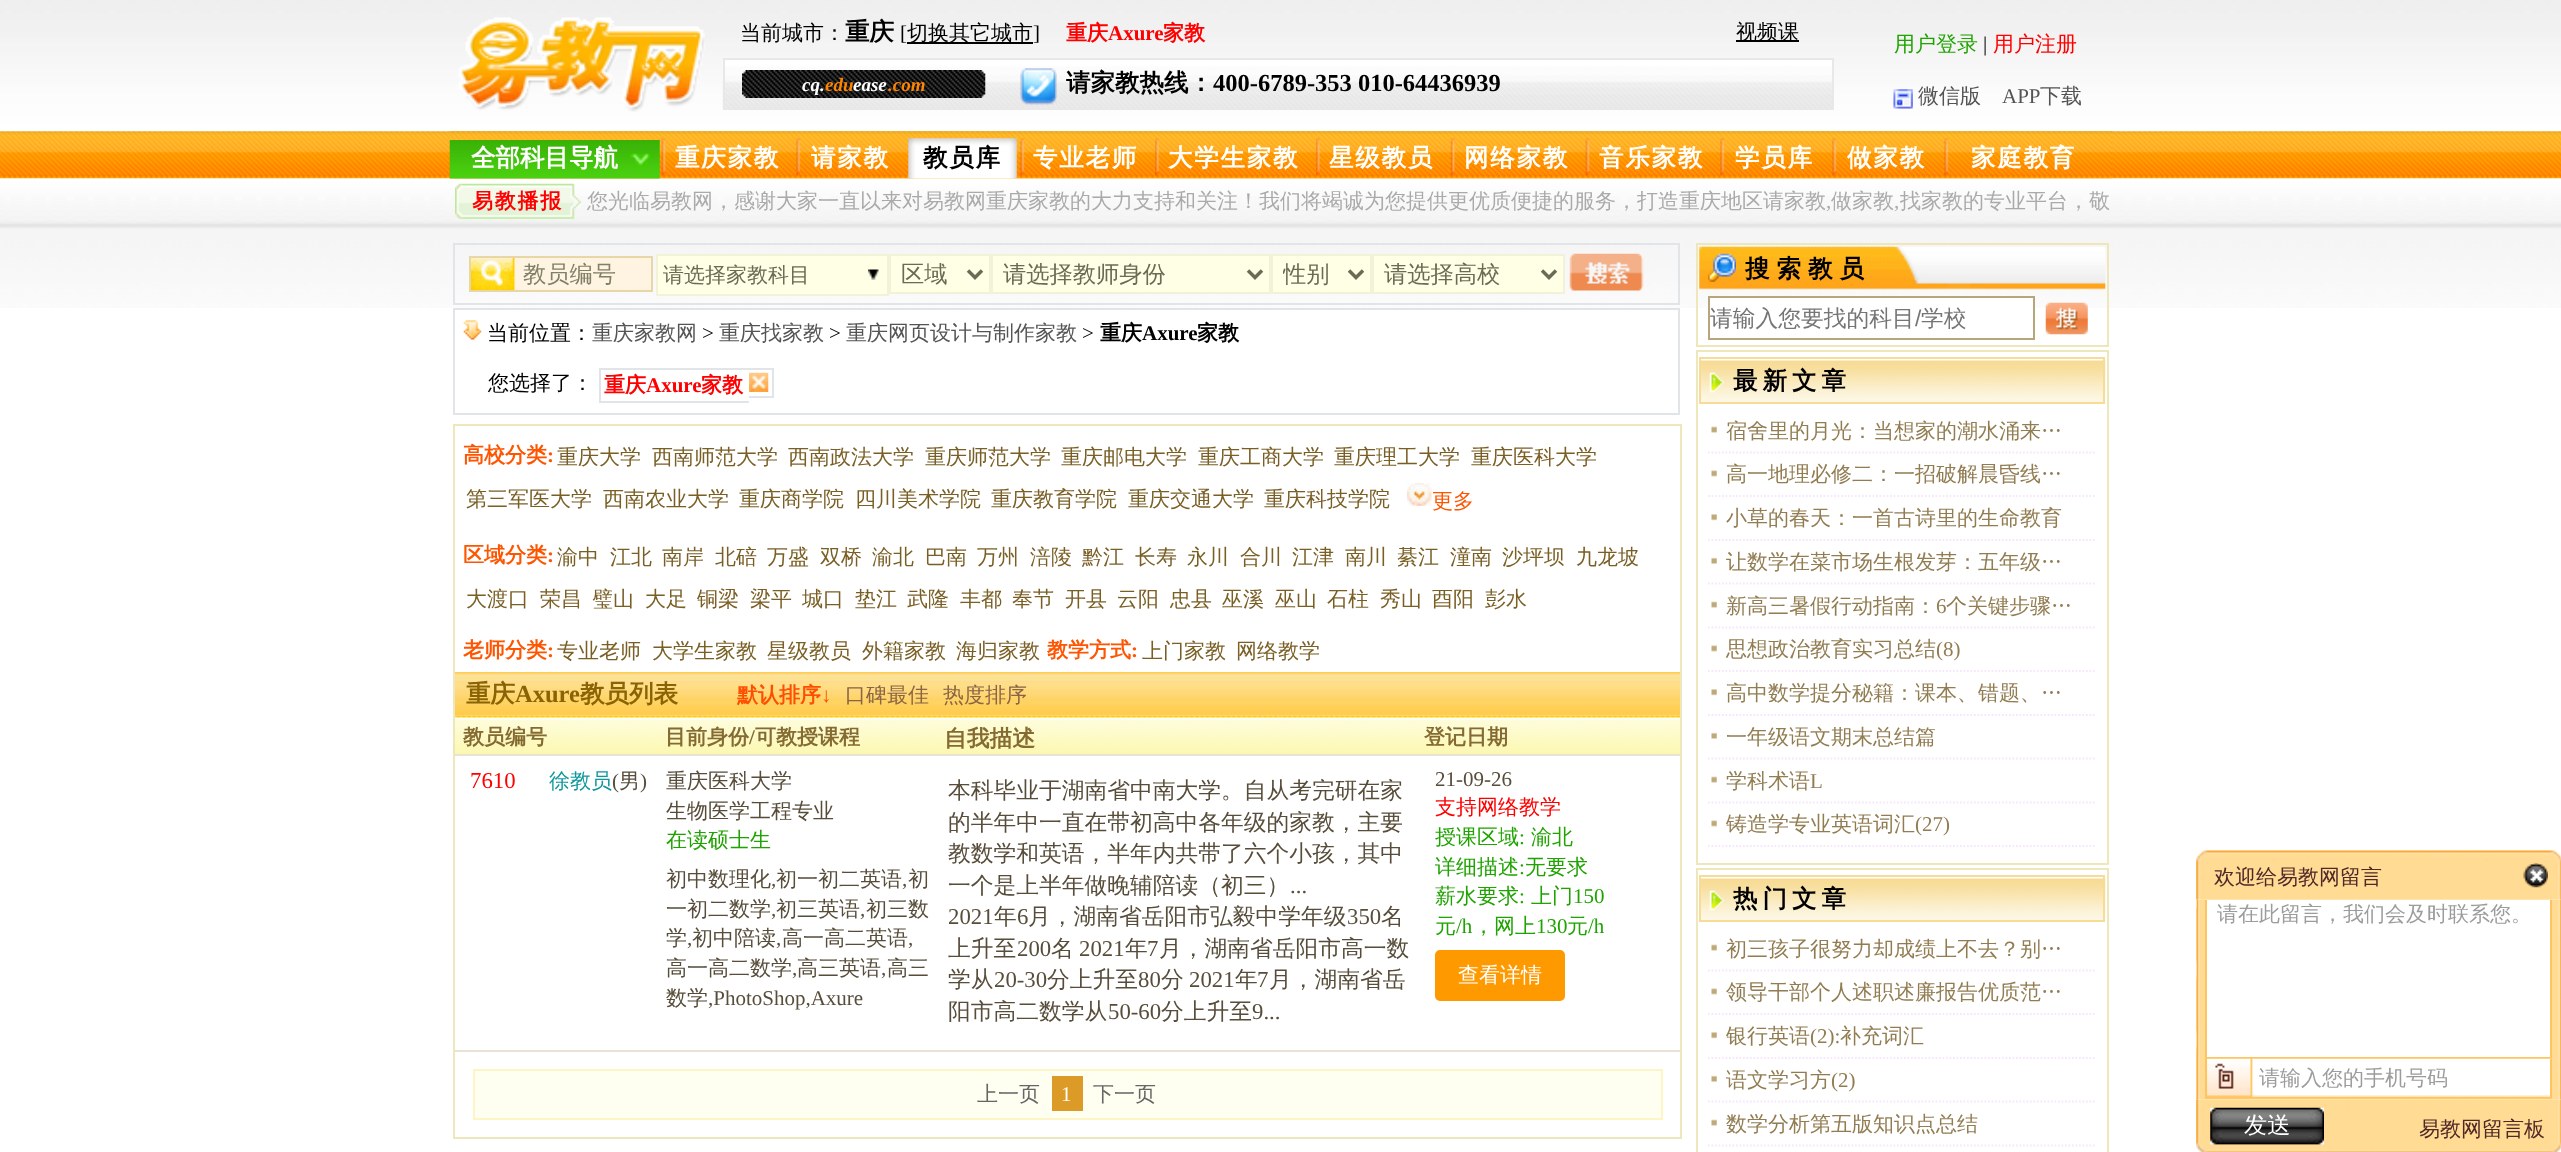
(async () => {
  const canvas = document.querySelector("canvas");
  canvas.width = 2561;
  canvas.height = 1152;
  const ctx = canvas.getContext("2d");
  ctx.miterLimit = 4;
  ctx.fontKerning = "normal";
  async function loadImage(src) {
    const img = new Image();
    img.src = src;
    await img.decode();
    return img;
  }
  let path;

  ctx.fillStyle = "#ffffff";
  ctx.fillRect(0, 0, 2561, 1152);
  ctx.drawImage(await loadImage("img/1.png"), 0, 0, 2561, 308);
  ctx.drawImage(await loadImage("img/2.png"), 458, 17, 247, 95);
  ctx.fillStyle = "#000000";
  ctx.fillRect(907, 42, 126, 2);
  ctx.fillRect(1736, 40, 63, 2);
  ctx.drawImage(await loadImage("img/3.png"), 722, 59, 1110, 50);
  ctx.strokeStyle = "#e8e8e8";
  ctx.lineWidth = 2;
  ctx.strokeRect(724, 59, 1109, 50);
  ctx.drawImage(await loadImage("img/4.png"), 742, 70, 244, 28);
  ctx.drawImage(await loadImage("img/5.png"), 1020, 68, 37, 37);
  ctx.drawImage(await loadImage("img/6.png"), 1893, 89, 20, 20);
  ctx.drawImage(await loadImage("img/7.png"), 0, 131, 2561, 48);
  ctx.drawImage(await loadImage("img/8.png"), 449, 131, 1664, 48);
  ctx.drawImage(await loadImage("img/9.png"), 449, 140, 211, 39);
  ctx.drawImage(await loadImage("img/10.png"), 661, 138, 5, 38);
  ctx.drawImage(await loadImage("img/11.png"), 796, 138, 5, 38);
  ctx.drawImage(await loadImage("img/12.png"), 908, 138, 5, 38);
  ctx.drawImage(await loadImage("img/13.png"), 908, 138, 109, 41);
  ctx.drawImage(await loadImage("img/14.png"), 1020, 138, 5, 38);
  ctx.drawImage(await loadImage("img/15.png"), 1155, 138, 4, 38);
  ctx.drawImage(await loadImage("img/16.png"), 1316, 138, 4, 38);
  ctx.drawImage(await loadImage("img/17.png"), 1450, 138, 5, 38);
  ctx.drawImage(await loadImage("img/10.png"), 1585, 138, 5, 38);
  ctx.drawImage(await loadImage("img/18.png"), 1720, 138, 5, 38);
  ctx.drawImage(await loadImage("img/19.png"), 1832, 138, 5, 38);
  ctx.drawImage(await loadImage("img/20.png"), 1944, 138, 5, 38);
  ctx.drawImage(await loadImage("img/21.png"), 455, 183, 126, 36);
  ctx.strokeStyle = "#e2e5e8";
  ctx.strokeRect(454, 244, 1225, 60);
  ctx.fillStyle = "#fff3e2";
  ctx.fillRect(514, 258, 137, 32);
  ctx.drawImage(await loadImage("img/22.png"), 471, 258, 44, 32);
  ctx.strokeStyle = "#e8d6a6";
  ctx.strokeRect(470, 257, 182, 34);
  ctx.fillStyle = "#ffffe6";
  ctx.fillRect(658, 256, 229, 38);
  ctx.drawImage(await loadImage("img/23.png"), 868, 269, 11, 11);
  ctx.strokeStyle = "#f2f2d8";
  ctx.strokeRect(657, 255, 231, 40);
  ctx.beginPath();
  ctx.rect(890, 255, 100, 38);
  ctx.fill();
  ctx.stroke();
  path = new Path2D("M968 270.5L975 277.5L982 270.5");
  ctx.strokeStyle = "#6b6b55";
  ctx.lineWidth = 3.5;
  ctx.stroke(path);
  ctx.beginPath();
  ctx.rect(992, 255, 278, 38);
  ctx.fill();
  ctx.strokeStyle = "#f2f2d8";
  ctx.lineWidth = 2;
  ctx.stroke();
  path = new Path2D("M1248 270.5L1255 277.5L1262 270.5");
  ctx.strokeStyle = "#6b6b55";
  ctx.lineWidth = 3.5;
  ctx.stroke(path);
  ctx.beginPath();
  ctx.rect(1272, 255, 99, 38);
  ctx.fill();
  ctx.strokeStyle = "#f2f2d8";
  ctx.lineWidth = 2;
  ctx.stroke();
  path = new Path2D("M1349 270.5L1356 277.5L1363 270.5");
  ctx.strokeStyle = "#6b6b55";
  ctx.lineWidth = 3.5;
  ctx.stroke(path);
  ctx.beginPath();
  ctx.rect(1373, 255, 191, 38);
  ctx.fill();
  ctx.strokeStyle = "#f2f2d8";
  ctx.lineWidth = 2;
  ctx.stroke();
  path = new Path2D("M1542 270.5L1549 277.5L1556 270.5");
  ctx.strokeStyle = "#6b6b55";
  ctx.lineWidth = 3.5;
  ctx.stroke(path);
  ctx.drawImage(await loadImage("img/24.png"), 1569, 253, 75, 38);
  ctx.strokeStyle = "#e2e5e8";
  ctx.lineWidth = 2;
  ctx.strokeRect(454, 309, 1225, 105);
  ctx.drawImage(await loadImage("img/25.png"), 463, 320, 19, 20);
  for (const [x, y, w, h, color] of [
    [599, 368, 175, 2, "#e2e5e8"],
    [599, 401, 150, 2, "#e2e5e8"],
    [599, 368, 2, 35, "#e2e5e8"],
    [772, 368, 2, 29, "#e2e5e8"],
    [749, 396, 25, 2, "#e2e5e8"],
  ]) {
    ctx.fillStyle = color;
    ctx.fillRect(x, y, w, h);
  }
  ctx.drawImage(await loadImage("img/26.png"), 749, 372, 20, 20);
  ctx.strokeStyle = "#efe7bc";
  ctx.strokeRect(454, 425, 1227, 713);
  ctx.drawImage(await loadImage("img/27.png"), 1407, 483, 25, 23);
  ctx.drawImage(await loadImage("img/28.png"), 455, 672, 1225, 44);
  ctx.drawImage(await loadImage("img/29.png"), 455, 715, 1225, 39);
  ctx.fillStyle = "#e9e2d5";
  ctx.fillRect(455, 754, 1225, 2);
  ctx.fillRect(455, 1050, 1225, 2);
  ctx.fillStyle = "#ff9900";
  ctx.beginPath();
  ctx.roundRect(1436, 951, 128, 49, 4);
  ctx.fill();
  ctx.strokeStyle = "#ff9900";
  ctx.stroke();
  ctx.fillStyle = "#fefef1";
  ctx.beginPath();
  ctx.rect(474, 1070, 1188, 49);
  ctx.fill();
  ctx.strokeStyle = "#fef5c5";
  ctx.stroke();
  ctx.fillStyle = "#db9b26";
  ctx.fillRect(1052, 1076, 31, 35);
  ctx.strokeStyle = "#efe7bc";
  ctx.strokeRect(1697, 244, 411, 102);
  ctx.drawImage(await loadImage("img/30.png"), 1699, 246, 407, 44);
  ctx.drawImage(await loadImage("img/31.png"), 1708, 253, 28, 29);
  ctx.fillStyle = "#ffffff";
  ctx.fillRect(1710, 298, 323, 10);
  ctx.strokeStyle = "#b7a679";
  ctx.strokeRect(1709, 297, 325, 42);
  ctx.drawImage(await loadImage("img/32.png"), 2045, 302, 43, 33);
  ctx.strokeStyle = "#efe7bc";
  ctx.strokeRect(1697, 351, 411, 513);
  ctx.drawImage(await loadImage("img/33.png"), 1701, 360, 405, 44);
  ctx.strokeStyle = "#f7db96";
  ctx.strokeRect(1700, 358, 404, 45);
  ctx.drawImage(await loadImage("img/34.png"), 1709, 372, 15, 21);
  ctx.drawImage(await loadImage("img/35.png"), 1711, 426, 6, 7);
  path = new Path2D("M1708 452.5H2096.5");
  ctx.strokeStyle = "#f6e7fc";
  ctx.lineWidth = 1.8;
  ctx.setLineDash([1.75, 1.75]);
  ctx.stroke(path);
  ctx.drawImage(await loadImage("img/36.png"), 1711, 470, 6, 7);
  path = new Path2D("M1708 496H2096.5");
  ctx.stroke(path);
  ctx.drawImage(await loadImage("img/37.png"), 1711, 514, 6, 7);
  path = new Path2D("M1708 540H2096.5");
  ctx.stroke(path);
  ctx.drawImage(await loadImage("img/38.png"), 1711, 557, 6, 7);
  path = new Path2D("M1708 583.5H2096.5");
  ctx.stroke(path);
  ctx.drawImage(await loadImage("img/35.png"), 1711, 601, 6, 7);
  path = new Path2D("M1708 627.5H2096.5");
  ctx.stroke(path);
  ctx.drawImage(await loadImage("img/36.png"), 1711, 645, 6, 7);
  path = new Path2D("M1708 671H2096.5");
  ctx.stroke(path);
  ctx.drawImage(await loadImage("img/37.png"), 1711, 689, 6, 7);
  path = new Path2D("M1708 715H2096.5");
  ctx.stroke(path);
  ctx.drawImage(await loadImage("img/38.png"), 1711, 732, 6, 7);
  path = new Path2D("M1708 758.5H2096.5");
  ctx.stroke(path);
  ctx.drawImage(await loadImage("img/35.png"), 1711, 776, 6, 7);
  path = new Path2D("M1708 802.5H2096.5");
  ctx.stroke(path);
  ctx.drawImage(await loadImage("img/36.png"), 1711, 820, 6, 7);
  path = new Path2D("M1708 846H2096.5");
  ctx.stroke(path);
  ctx.strokeStyle = "#efe7bc";
  ctx.lineWidth = 2;
  ctx.setLineDash([]);
  ctx.strokeRect(1697, 869, 411, 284);
  ctx.drawImage(await loadImage("img/39.png"), 1701, 878, 405, 44);
  ctx.strokeStyle = "#f7db96";
  ctx.strokeRect(1700, 876, 404, 45);
  ctx.drawImage(await loadImage("img/40.png"), 1709, 890, 15, 21);
  ctx.drawImage(await loadImage("img/35.png"), 1711, 944, 6, 7);
  path = new Path2D("M1708 970.5H2096.5");
  ctx.strokeStyle = "#f6e7fc";
  ctx.lineWidth = 1.8;
  ctx.setLineDash([1.75, 1.75]);
  ctx.stroke(path);
  ctx.drawImage(await loadImage("img/36.png"), 1711, 988, 6, 7);
  path = new Path2D("M1708 1014H2096.5");
  ctx.stroke(path);
  ctx.drawImage(await loadImage("img/37.png"), 1711, 1032, 6, 7);
  path = new Path2D("M1708 1058H2096.5");
  ctx.stroke(path);
  ctx.drawImage(await loadImage("img/38.png"), 1711, 1075, 6, 7);
  path = new Path2D("M1708 1101.5H2096.5");
  ctx.stroke(path);
  ctx.drawImage(await loadImage("img/35.png"), 1711, 1119, 6, 7);
  path = new Path2D("M1708 1145.5H2096.5");
  ctx.stroke(path);
  ctx.drawImage(await loadImage("img/41.png"), 2196, 850, 365, 50);
  ctx.drawImage(await loadImage("img/42.png"), 2523, 862, 25, 26);
  ctx.drawImage(await loadImage("img/43.png"), 2196, 899, 365, 200);
  for (const [x, y, w, h, color] of [
    [2207, 900, 343, 157, "#ffffff"],
    [2550, 900, 2, 159, "#fec461"],
    [2205, 1057, 347, 2, "#fec461"],
    [2205, 900, 2, 159, "#fec461"],
  ]) {
    ctx.fillStyle = color;
    ctx.fillRect(x, y, w, h);
  }
  ctx.drawImage(await loadImage("img/44.png"), 2206, 1058, 346, 39);
  for (const [x, y, w, h, color] of [
    [2550, 1059, 2, 40, "#fec461"],
    [2205, 1097, 347, 2, "#fec461"],
    [2205, 1059, 2, 40, "#fec461"],
  ]) {
    ctx.fillStyle = color;
    ctx.fillRect(x, y, w, h);
  }
  ctx.drawImage(await loadImage("img/45.png"), 2196, 1098, 365, 54);
  ctx.drawImage(await loadImage("img/46.png"), 2210, 1107, 114, 38);
  ctx.font = "500 21px WenQuanYi Zen Hei";
  ctx.fillStyle = "#000000";
  ctx.fillText("当前城市：", 740, 40);
  ctx.font = "bold 24.5px WenQuanYi Zen Hei";
  ctx.fillText("重庆", 845, 40);
  ctx.font = "21px Liberation Serif";
  ctx.fillText("[", 900, 40);
  ctx.font = "500 21px WenQuanYi Zen Hei";
  ctx.fillText("切换其它城市", 907, 40);
  ctx.font = "21px Liberation Serif";
  ctx.fillText("]", 1033, 40);
  ctx.font = "bold 21px WenQuanYi Zen Hei";
  ctx.fillStyle = "#ff0000";
  ctx.fillText("重庆", 1066, 40);
  ctx.font = "bold 21px Liberation Serif";
  ctx.fillText("Axure", 1108, 40);
  ctx.font = "bold 21px WenQuanYi Zen Hei";
  ctx.fillText("家教", 1163, 40);
  ctx.font = "500 21px WenQuanYi Zen Hei";
  ctx.fillStyle = "#000000";
  ctx.fillText("视频课", 1736, 39);
  ctx.font = "italic bold 19px Liberation Serif";
  ctx.fillStyle = "#ffffff";
  ctx.fillText("cq.", 802, 91);
  ctx.fillStyle = "#ff8400";
  ctx.fillText("edu", 825, 91);
  ctx.fillStyle = "#ffffff";
  ctx.fillText("ease", 853, 91);
  ctx.fillStyle = "#ff8400";
  ctx.fillText(".com", 888, 91);
  ctx.font = "bold 24.5px WenQuanYi Zen Hei";
  ctx.fillStyle = "#000000";
  ctx.fillText("请家教热线：", 1066, 91);
  ctx.font = "bold 24.5px Liberation Serif";
  ctx.fillText("400-6789-353 010-64436939", 1213, 91);
  ctx.font = "500 21px WenQuanYi Zen Hei";
  ctx.fillStyle = "#1fa300";
  ctx.fillText("用户登录", 1894, 51);
  ctx.font = "21px Liberation Serif";
  ctx.fillStyle = "#000000";
  ctx.fillText("|", 1983, 51);
  ctx.font = "500 21px WenQuanYi Zen Hei";
  ctx.fillStyle = "#ff0000";
  ctx.fillText("用户注册", 1993, 51);
  ctx.fillStyle = "#545454";
  ctx.fillText("微信版", 1918, 103);
  ctx.font = "21px Liberation Serif";
  ctx.fillText("APP", 2002, 103);
  ctx.font = "500 21px WenQuanYi Zen Hei";
  ctx.fillText("下载", 2040, 103);
  ctx.font = "bold 24.5px WenQuanYi Zen Hei";
  ctx.fillStyle = "#ffffff";
  ctx.fillText("全部科目导航", 471, 166);
  ctx.letterSpacing = "1.75px";
  ctx.fillText("重庆家教", 675, 166);
  ctx.fillText("请家教", 811, 166);
  ctx.fillStyle = "#000000";
  ctx.fillText("教员库", 923, 166);
  ctx.fillStyle = "#ffffff";
  for (const [text, x, y] of [
    ["专业老师", 1033, 166],
    ["大学生家教", 1168, 166],
    ["星级教员", 1329, 166],
    ["网络家教", 1464, 166],
    ["音乐家教", 1599, 166],
    ["学员库", 1735, 166],
    ["做家教", 1847, 166],
    ["家庭教育", 1971, 166],
  ]) {
    ctx.fillText(text, x, y);
  }
  ctx.font = "bold 21px WenQuanYi Zen Hei";
  ctx.fillStyle = "#ff0000";
  ctx.fillText("易教播报", 472, 208);
  ctx.letterSpacing = "0px";
  ctx.font = "500 21px WenQuanYi Zen Hei";
  ctx.fillStyle = "#aaaaaa";
  ctx.fillText("您光临易教网，感谢大家一直以来对易教网重庆家教的大力支持和关注！我们将竭诚为您提供更优质便捷的服务，打造重庆地区请家教", 587, 208);
  ctx.font = "21px Liberation Serif";
  ctx.fillText(",", 1826, 208);
  ctx.font = "500 21px WenQuanYi Zen Hei";
  ctx.fillText("做家教", 1831, 208);
  ctx.font = "21px Liberation Serif";
  ctx.fillText(",", 1894, 208);
  ctx.font = "500 21px WenQuanYi Zen Hei";
  ctx.fillText("找家教的专业平台，敬", 1900, 208);
  ctx.font = "500 23.25px WenQuanYi Zen Hei";
  ctx.fillStyle = "#808066";
  ctx.fillText("教员编号", 523, 282);
  ctx.font = "500 21px WenQuanYi Zen Hei";
  ctx.fillStyle = "#6b6b55";
  ctx.fillText("请选择家教科目", 663, 282);
  ctx.font = "500 23.25px WenQuanYi Zen Hei";
  ctx.fillText("区域", 901, 282);
  ctx.fillText("请选择教师身份", 1003, 282);
  ctx.save();
  ctx.beginPath();
  ctx.rect(1283, 259, 56, 30);
  ctx.clip();
  ctx.fillText("性别", 1283, 282);
  ctx.restore();
  ctx.fillText("请选择高校", 1384, 282);
  ctx.font = "500 21px WenQuanYi Zen Hei";
  ctx.fillStyle = "#000000";
  ctx.fillText("当前位置：", 487, 340);
  ctx.fillStyle = "#545454";
  ctx.fillText("重庆家教网", 592, 340);
  ctx.font = "21px Liberation Serif";
  ctx.fillStyle = "#000000";
  ctx.fillText(">", 702, 340);
  ctx.font = "500 21px WenQuanYi Zen Hei";
  ctx.fillStyle = "#545454";
  ctx.fillText("重庆找家教", 719, 340);
  ctx.font = "21px Liberation Serif";
  ctx.fillStyle = "#000000";
  ctx.fillText(">", 829, 340);
  ctx.font = "500 21px WenQuanYi Zen Hei";
  ctx.fillStyle = "#545454";
  ctx.fillText("重庆网页设计与制作家教", 846, 340);
  ctx.font = "21px Liberation Serif";
  ctx.fillStyle = "#000000";
  ctx.fillText(">", 1082, 340);
  ctx.font = "bold 21px WenQuanYi Zen Hei";
  ctx.fillText("重庆", 1100, 340);
  ctx.font = "bold 21px Liberation Serif";
  ctx.fillText("Axure", 1142, 340);
  ctx.font = "bold 21px WenQuanYi Zen Hei";
  ctx.fillText("家教", 1197, 340);
  ctx.font = "500 21px WenQuanYi Zen Hei";
  ctx.fillText("您选择了：", 488, 390);
  ctx.font = "bold 21px WenQuanYi Zen Hei";
  ctx.fillStyle = "#ff0000";
  ctx.fillText("重庆", 604, 392);
  ctx.font = "bold 21px Liberation Serif";
  ctx.fillText("Axure", 646, 392);
  ctx.font = "bold 21px WenQuanYi Zen Hei";
  ctx.fillText("家教", 701, 392);
  ctx.fillStyle = "#ff5500";
  ctx.fillText("高校分类", 463, 462);
  ctx.font = "bold 21px Liberation Serif";
  ctx.fillText(":", 547, 462);
  ctx.font = "500 21px WenQuanYi Zen Hei";
  ctx.fillStyle = "#7a5f25";
  for (const [text, x, y] of [
    ["重庆大学", 557, 464],
    ["西南师范大学", 652, 464],
    ["西南政法大学", 788, 464],
    ["重庆师范大学", 925, 464],
    ["重庆邮电大学", 1061, 464],
    ["重庆工商大学", 1198, 464],
    ["重庆理工大学", 1334, 464],
    ["重庆医科大学", 1471, 464],
    ["第三军医大学", 466, 506],
    ["西南农业大学", 603, 506],
    ["重庆商学院", 739, 506],
    ["四川美术学院", 855, 506],
    ["重庆教育学院", 991, 506],
    ["重庆交通大学", 1128, 506],
    ["重庆科技学院", 1264, 506],
  ]) {
    ctx.fillText(text, x, y);
  }
  ctx.fillStyle = "#ff5500";
  ctx.fillText("更多", 1432, 508);
  ctx.font = "bold 21px WenQuanYi Zen Hei";
  ctx.fillText("区域分类", 463, 562);
  ctx.font = "bold 21px Liberation Serif";
  ctx.fillText(":", 547, 562);
  ctx.font = "500 21px WenQuanYi Zen Hei";
  ctx.fillStyle = "#7a5f25";
  for (const [text, x, y] of [
    ["渝中", 557, 564],
    ["江北", 610, 564],
    ["南岸", 662, 564],
    ["北碚", 715, 564],
    ["万盛", 767, 564],
    ["双桥", 820, 564],
    ["渝北", 872, 564],
    ["巴南", 925, 564],
    ["万州", 977, 564],
    ["涪陵", 1030, 564],
    ["黔江", 1082, 564],
    ["长寿", 1135, 564],
    ["永川", 1187, 564],
    ["合川", 1240, 564],
    ["江津", 1292, 564],
    ["南川", 1345, 564],
    ["綦江", 1397, 564],
    ["潼南", 1450, 564],
    ["沙坪坝", 1502, 564],
    ["九龙坡", 1576, 564],
    ["大渡口", 466, 606],
    ["荣昌", 540, 606],
    ["璧山", 592, 606],
    ["大足", 645, 606],
    ["铜梁", 697, 606],
    ["梁平", 750, 606],
    ["城口", 802, 606],
    ["垫江", 855, 606],
    ["武隆", 907, 606],
    ["丰都", 960, 606],
    ["奉节", 1012, 606],
    ["开县", 1065, 606],
    ["云阳", 1117, 606],
    ["忠县", 1170, 606],
    ["巫溪", 1222, 606],
    ["巫山", 1275, 606],
    ["石柱", 1327, 606],
    ["秀山", 1380, 606],
    ["酉阳", 1432, 606],
    ["彭水", 1485, 606],
  ]) {
    ctx.fillText(text, x, y);
  }
  ctx.font = "bold 21px WenQuanYi Zen Hei";
  ctx.fillStyle = "#ff5500";
  ctx.fillText("老师分类", 463, 657);
  ctx.font = "bold 21px Liberation Serif";
  ctx.fillText(":", 547, 657);
  ctx.font = "500 21px WenQuanYi Zen Hei";
  ctx.fillStyle = "#7a5f25";
  for (const [text, x, y] of [
    ["专业老师", 557, 658],
    ["大学生家教", 652, 658],
    ["星级教员", 767, 658],
    ["外籍家教", 862, 658],
    ["海归家教", 956, 658],
  ]) {
    ctx.fillText(text, x, y);
  }
  ctx.font = "bold 21px WenQuanYi Zen Hei";
  ctx.fillStyle = "#ff5500";
  ctx.fillText("教学方式", 1047, 657);
  ctx.font = "bold 21px Liberation Serif";
  ctx.fillText(":", 1131, 657);
  ctx.font = "500 21px WenQuanYi Zen Hei";
  ctx.fillStyle = "#7a5f25";
  ctx.fillText("上门家教", 1142, 658);
  ctx.fillText("网络教学", 1236, 658);
  ctx.font = "bold 24.5px WenQuanYi Zen Hei";
  ctx.fillStyle = "#8a6404";
  ctx.fillText("重庆", 466, 702);
  ctx.font = "bold 24.5px Liberation Serif";
  ctx.fillText("Axure", 515, 702);
  ctx.font = "bold 24.5px WenQuanYi Zen Hei";
  ctx.fillText("教员列表", 580, 702);
  ctx.font = "bold 21px WenQuanYi Zen Hei";
  ctx.fillStyle = "#ff4e00";
  ctx.fillText("默认排序", 737, 702);
  ctx.font = "bold 21px Liberation Serif";
  ctx.fillText("↓", 821, 702);
  ctx.font = "500 21px WenQuanYi Zen Hei";
  ctx.fillStyle = "#8a6444";
  ctx.fillText("口碑最佳", 845, 702);
  ctx.fillText("热度排序", 943, 702);
  ctx.font = "bold 21px WenQuanYi Zen Hei";
  ctx.fillStyle = "#856b31";
  ctx.fillText("教员编号", 463, 744);
  ctx.fillText("目前身份", 665, 744);
  ctx.font = "bold 21px Liberation Serif";
  ctx.fillText("/", 749, 744);
  ctx.font = "bold 21px WenQuanYi Zen Hei";
  ctx.fillText("可教授课程", 755, 744);
  ctx.font = "bold 22.75px WenQuanYi Zen Hei";
  ctx.fillText("自我描述", 944, 746);
  ctx.font = "bold 21px WenQuanYi Zen Hei";
  ctx.fillText("登记日期", 1424, 744);
  ctx.font = "22.75px Liberation Serif";
  ctx.fillStyle = "#ff0000";
  ctx.fillText("7610", 470, 788);
  ctx.font = "500 21px WenQuanYi Zen Hei";
  ctx.fillStyle = "#0f989c";
  ctx.fillText("徐教员", 549, 788);
  ctx.font = "21px Liberation Serif";
  ctx.fillStyle = "#574d3a";
  ctx.fillText("(", 612, 788);
  ctx.font = "500 21px WenQuanYi Zen Hei";
  ctx.fillText("男", 619, 788);
  ctx.font = "21px Liberation Serif";
  ctx.fillText(")", 640, 788);
  ctx.font = "500 21px WenQuanYi Zen Hei";
  ctx.fillText("重庆医科大学", 666, 788);
  ctx.fillText("生物医学工程专业", 666, 818);
  ctx.fillStyle = "#1fa300";
  ctx.fillText("在读硕士生", 666, 847);
  ctx.fillStyle = "#574d3a";
  ctx.fillText("初中数理化", 666, 886);
  ctx.font = "21px Liberation Serif";
  ctx.fillText(",", 771, 886);
  ctx.font = "500 21px WenQuanYi Zen Hei";
  ctx.fillText("初一初二英语", 776, 886);
  ctx.font = "21px Liberation Serif";
  ctx.fillText(",", 902, 886);
  ctx.font = "500 21px WenQuanYi Zen Hei";
  ctx.fillText("初", 908, 886);
  ctx.fillText("一初二数学", 666, 916);
  ctx.font = "21px Liberation Serif";
  ctx.fillText(",", 771, 916);
  ctx.font = "500 21px WenQuanYi Zen Hei";
  ctx.fillText("初三英语", 776, 916);
  ctx.font = "21px Liberation Serif";
  ctx.fillText(",", 860, 916);
  ctx.font = "500 21px WenQuanYi Zen Hei";
  ctx.fillText("初三数", 866, 916);
  ctx.fillText("学", 666, 945);
  ctx.font = "21px Liberation Serif";
  ctx.fillText(",", 687, 945);
  ctx.font = "500 21px WenQuanYi Zen Hei";
  ctx.fillText("初中陪读", 692, 945);
  ctx.font = "21px Liberation Serif";
  ctx.fillText(",", 776, 945);
  ctx.font = "500 21px WenQuanYi Zen Hei";
  ctx.fillText("高一高二英语", 782, 945);
  ctx.font = "21px Liberation Serif";
  ctx.fillText(",", 908, 945);
  ctx.font = "500 21px WenQuanYi Zen Hei";
  ctx.fillText("高一高二数学", 666, 975);
  ctx.font = "21px Liberation Serif";
  ctx.fillText(",", 792, 975);
  ctx.font = "500 21px WenQuanYi Zen Hei";
  ctx.fillText("高三英语", 797, 975);
  ctx.font = "21px Liberation Serif";
  ctx.fillText(",", 881, 975);
  ctx.font = "500 21px WenQuanYi Zen Hei";
  ctx.fillText("高三", 887, 975);
  ctx.fillText("数学", 666, 1005);
  ctx.font = "21px Liberation Serif";
  ctx.fillText(",PhotoShop,Axure", 708, 1005);
  ctx.font = "500 22.75px WenQuanYi Zen Hei";
  for (const [text, x, y] of [
    ["本科毕业于湖南省中南大学。自从考完研在家", 948, 798],
    ["的半年中一直在带初高中各年级的家教，主要", 948, 830],
    ["教数学和英语，半年内共带了六个小孩，其中", 948, 861],
    ["一个是上半年做晚辅陪读（初三）", 948, 893],
  ]) {
    ctx.fillText(text, x, y);
  }
  ctx.font = "22.75px Liberation Serif";
  ctx.fillText("...", 1290, 893);
  ctx.fillText("2021", 948, 924);
  ctx.font = "500 22.75px WenQuanYi Zen Hei";
  ctx.fillText("年", 994, 924);
  ctx.font = "22.75px Liberation Serif";
  ctx.fillText("6", 1017, 924);
  ctx.font = "500 22.75px WenQuanYi Zen Hei";
  ctx.fillText("月，湖南省岳阳市弘毅中学年级", 1028, 924);
  ctx.font = "22.75px Liberation Serif";
  ctx.fillText("350", 1347, 924);
  ctx.font = "500 22.75px WenQuanYi Zen Hei";
  ctx.fillText("名", 1381, 924);
  ctx.fillText("上升至", 948, 956);
  ctx.font = "22.75px Liberation Serif";
  ctx.fillText("200", 1017, 956);
  ctx.font = "500 22.75px WenQuanYi Zen Hei";
  ctx.fillText("名", 1051, 956);
  ctx.font = "22.75px Liberation Serif";
  ctx.fillText("2021", 1079, 956);
  ctx.font = "500 22.75px WenQuanYi Zen Hei";
  ctx.fillText("年", 1125, 956);
  ctx.font = "22.75px Liberation Serif";
  ctx.fillText("7", 1147, 956);
  ctx.font = "500 22.75px WenQuanYi Zen Hei";
  ctx.fillText("月，湖南省岳阳市高一数", 1159, 956);
  ctx.fillText("学从", 948, 987);
  ctx.font = "22.75px Liberation Serif";
  ctx.fillText("20-30", 994, 987);
  ctx.font = "500 22.75px WenQuanYi Zen Hei";
  ctx.fillText("分上升至", 1047, 987);
  ctx.font = "22.75px Liberation Serif";
  ctx.fillText("80", 1138, 987);
  ctx.font = "500 22.75px WenQuanYi Zen Hei";
  ctx.fillText("分", 1161, 987);
  ctx.font = "22.75px Liberation Serif";
  ctx.fillText("2021", 1189, 987);
  ctx.font = "500 22.75px WenQuanYi Zen Hei";
  ctx.fillText("年", 1235, 987);
  ctx.font = "22.75px Liberation Serif";
  ctx.fillText("7", 1257, 987);
  ctx.font = "500 22.75px WenQuanYi Zen Hei";
  ctx.fillText("月，湖南省岳", 1269, 987);
  ctx.fillText("阳市高二数学从", 948, 1019);
  ctx.font = "22.75px Liberation Serif";
  ctx.fillText("50-60", 1108, 1019);
  ctx.font = "500 22.75px WenQuanYi Zen Hei";
  ctx.fillText("分上升至", 1161, 1019);
  ctx.font = "22.75px Liberation Serif";
  ctx.fillText("9...", 1252, 1019);
  ctx.font = "21px Liberation Serif";
  ctx.fillText("21-09-26", 1435, 786);
  ctx.font = "500 21px WenQuanYi Zen Hei";
  ctx.fillStyle = "#ff0000";
  ctx.fillText("支持网络教学", 1435, 814);
  ctx.fillStyle = "#1fa300";
  ctx.fillText("授课区域", 1435, 844);
  ctx.font = "21px Liberation Serif";
  ctx.fillText(":", 1519, 844);
  ctx.font = "500 21px WenQuanYi Zen Hei";
  ctx.fillText("渝北", 1531, 844);
  ctx.fillText("详细描述", 1435, 874);
  ctx.font = "21px Liberation Serif";
  ctx.fillText(":", 1519, 874);
  ctx.font = "500 21px WenQuanYi Zen Hei";
  ctx.fillText("无要求", 1525, 874);
  ctx.fillText("薪水要求", 1435, 903);
  ctx.font = "21px Liberation Serif";
  ctx.fillText(":", 1519, 903);
  ctx.font = "500 21px WenQuanYi Zen Hei";
  ctx.fillText("上门", 1531, 903);
  ctx.font = "21px Liberation Serif";
  ctx.fillText("150", 1573, 903);
  ctx.font = "500 21px WenQuanYi Zen Hei";
  ctx.fillText("元", 1435, 933);
  ctx.font = "21px Liberation Serif";
  ctx.fillText("/h", 1456, 933);
  ctx.font = "500 21px WenQuanYi Zen Hei";
  ctx.fillText("，网上", 1473, 933);
  ctx.font = "21px Liberation Serif";
  ctx.fillText("130", 1536, 933);
  ctx.font = "500 21px WenQuanYi Zen Hei";
  ctx.fillText("元", 1567, 933);
  ctx.font = "21px Liberation Serif";
  ctx.fillText("/h", 1588, 933);
  ctx.font = "500 21px WenQuanYi Zen Hei";
  ctx.fillStyle = "#ffffff";
  ctx.fillText("查看详情", 1458, 982);
  ctx.fillStyle = "#666666";
  ctx.fillText("上一页", 977, 1101);
  ctx.font = "21px Liberation Serif";
  ctx.fillStyle = "#ffffff";
  ctx.fillText("1", 1061, 1101);
  ctx.font = "500 21px WenQuanYi Zen Hei";
  ctx.fillStyle = "#666666";
  ctx.fillText("下一页", 1093, 1101);
  ctx.letterSpacing = "7px";
  ctx.font = "bold 24.5px WenQuanYi Zen Hei";
  ctx.fillStyle = "#000000";
  ctx.fillText("搜索教员", 1745, 277);
  ctx.letterSpacing = "0px";
  ctx.font = "500 22.75px WenQuanYi Zen Hei";
  ctx.fillStyle = "#757575";
  ctx.fillText("请输入您要找的科目", 1710, 326);
  ctx.font = "22.75px Liberation Sans";
  ctx.fillText("/", 1915, 326);
  ctx.font = "500 22.75px WenQuanYi Zen Hei";
  ctx.fillText("学校", 1921, 326);
  ctx.letterSpacing = "5px";
  ctx.font = "bold 24.5px WenQuanYi Zen Hei";
  ctx.fillStyle = "#000000";
  ctx.fillText("最新文章", 1733, 389);
  ctx.letterSpacing = "0px";
  ctx.font = "500 21px WenQuanYi Zen Hei";
  ctx.fillStyle = "#927d52";
  for (const [text, x, y] of [
    ["宿舍里的月光：当想家的潮水涌来…", 1726, 438],
    ["高一地理必修二：一招破解晨昏线…", 1726, 481],
    ["小草的春天：一首古诗里的生命教育", 1726, 525],
    ["让数学在菜市场生根发芽：五年级…", 1726, 569],
    ["新高三暑假行动指南：", 1726, 613],
  ]) {
    ctx.fillText(text, x, y);
  }
  ctx.font = "21px Liberation Serif";
  ctx.fillText("6", 1936, 613);
  ctx.font = "500 21px WenQuanYi Zen Hei";
  ctx.fillText("个关键步骤…", 1946, 613);
  ctx.fillText("思想政治教育实习总结", 1726, 656);
  ctx.font = "21px Liberation Serif";
  ctx.fillText("(8)", 1936, 656);
  ctx.font = "500 21px WenQuanYi Zen Hei";
  for (const [text, x, y] of [
    ["高中数学提分秘籍：课本、错题、…", 1726, 700],
    ["一年级语文期末总结篇", 1726, 744],
    ["学科术语", 1726, 788],
  ]) {
    ctx.fillText(text, x, y);
  }
  ctx.font = "21px Liberation Serif";
  ctx.fillText("L", 1810, 788);
  ctx.font = "500 21px WenQuanYi Zen Hei";
  ctx.fillText("铸造学专业英语词汇", 1726, 831);
  ctx.font = "21px Liberation Serif";
  ctx.fillText("(27)", 1915, 831);
  ctx.letterSpacing = "5px";
  ctx.font = "bold 24.5px WenQuanYi Zen Hei";
  ctx.fillStyle = "#000000";
  ctx.fillText("热门文章", 1733, 907);
  ctx.letterSpacing = "0px";
  ctx.font = "500 21px WenQuanYi Zen Hei";
  ctx.fillStyle = "#927d52";
  for (const [text, x, y] of [
    ["初三孩子很努力却成绩上不去？别…", 1726, 956],
    ["领导干部个人述职述廉报告优质范…", 1726, 999],
    ["银行英语", 1726, 1043],
  ]) {
    ctx.fillText(text, x, y);
  }
  ctx.font = "21px Liberation Serif";
  ctx.fillText("(2):", 1810, 1043);
  ctx.font = "500 21px WenQuanYi Zen Hei";
  ctx.fillText("补充词汇", 1840, 1043);
  ctx.fillText("语文学习方", 1726, 1087);
  ctx.font = "21px Liberation Serif";
  ctx.fillText("(2)", 1831, 1087);
  ctx.font = "500 21px WenQuanYi Zen Hei";
  ctx.fillText("数学分析第五版知识点总结", 1726, 1131);
  ctx.fillStyle = "#4f2828";
  ctx.fillText("欢迎给易教网留言", 2214, 884);
  ctx.fillStyle = "#9d9c9c";
  ctx.fillText("请在此留言，我们会及时联系您。", 2217, 921);
  ctx.fillText("请输入您的手机号码", 2259, 1085);
  ctx.font = "500 23.25px WenQuanYi Zen Hei";
  ctx.fillStyle = "#ffffff";
  ctx.fillText("发送", 2244, 1133);
  ctx.font = "500 21px WenQuanYi Zen Hei";
  ctx.fillStyle = "#4f2828";
  ctx.fillText("易教网留言板", 2419, 1136);
})();
